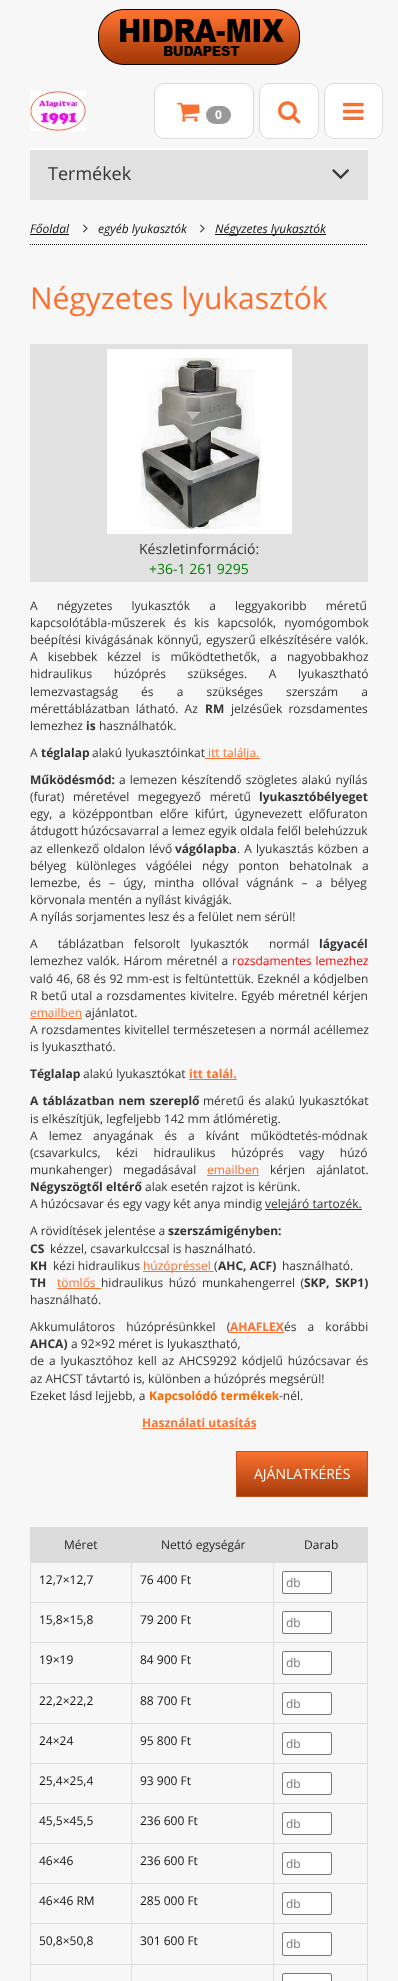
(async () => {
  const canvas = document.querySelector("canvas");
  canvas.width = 398;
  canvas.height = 1981;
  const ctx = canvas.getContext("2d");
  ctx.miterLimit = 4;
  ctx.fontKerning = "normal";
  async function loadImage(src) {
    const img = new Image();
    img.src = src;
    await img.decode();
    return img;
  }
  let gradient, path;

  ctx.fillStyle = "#f7f7f7";
  ctx.fillRect(0, 0, 398, 1981);
  ctx.drawImage(await loadImage("img/1.png"), 98, 9, 202, 56);
  ctx.drawImage(await loadImage("img/2.png"), 30, 91, 56, 40);
  ctx.fillStyle = "#ffffff";
  ctx.beginPath();
  ctx.roundRect(154.5, 83.5, 99, 55, 9.5);
  ctx.fill();
  ctx.strokeStyle = "#dbdbdb";
  ctx.stroke();
  ctx.drawImage(await loadImage("img/3.png"), 177, 102, 23, 20);
  ctx.fillStyle = "#999999";
  ctx.beginPath();
  ctx.roundRect(206, 106, 25, 18, 9);
  ctx.fill();
  ctx.fillStyle = "#ffffff";
  ctx.beginPath();
  ctx.roundRect(259.5, 83.5, 59, 55, 9.5);
  ctx.fill();
  ctx.stroke();
  ctx.drawImage(await loadImage("img/4.png"), 278, 101, 23, 23);
  ctx.beginPath();
  ctx.roundRect(324.5, 83.5, 58, 55, 9.5);
  ctx.fill();
  ctx.stroke();
  ctx.drawImage(await loadImage("img/5.png"), 343, 102, 21, 18);
  ctx.fillRect(30, 148, 338, 2);
  ctx.fillStyle = "#e1e1e1";
  ctx.fillRect(30, 150, 338, 50);
  ctx.drawImage(await loadImage("img/6.png"), 332, 169, 17, 10);
  path = new Path2D("M30 244.5H368");
  ctx.strokeStyle = "#111111";
  ctx.setLineDash([1, 1]);
  ctx.stroke(path);
  ctx.fillStyle = "#111111";
  ctx.fillRect(30, 234, 39, 1);
  ctx.drawImage(await loadImage("img/7.png"), 83, 224, 5, 9);
  ctx.drawImage(await loadImage("img/7.png"), 200, 224, 5, 9);
  ctx.fillRect(215, 234, 111, 1);
  ctx.fillStyle = "#e1e1e1";
  ctx.fillRect(30, 344, 338, 238);
  ctx.drawImage(await loadImage("img/8.png"), 107, 349, 185, 185);
  for (const [x, y, w, h, color] of [
    [30, 1018, 52, 1, "#fd7130"],
    [189, 1079, 48, 1, "#fd7130"],
    [207, 1175, 52, 1, "#fd7130"],
    [265, 1209, 97, 1, "#333333"],
    [143, 1271, 71, 1, "#fd7130"],
    [57, 1288, 44, 1, "#fd7130"],
    [230, 1332, 54, 1, "#fd7130"],
    [142, 1428, 114, 1, "#fd7130"],
  ]) {
    ctx.fillStyle = color;
    ctx.fillRect(x, y, w, h);
  }
  gradient = ctx.createLinearGradient(302, 1452, 302, 1496);
  gradient.addColorStop(0, "#fb7231");
  gradient.addColorStop(1, "#a63b09");
  ctx.fillStyle = gradient;
  ctx.fillRect(237, 1452, 130, 44);
  ctx.strokeStyle = "#c3541f";
  ctx.setLineDash([]);
  ctx.strokeRect(236.5, 1451.5, 131, 45);
  ctx.strokeStyle = "#dddddd";
  ctx.strokeRect(30.5, 1527.5, 337, 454);
  for (const [x, y, w, h, color] of [
    [31, 1528, 336, 34, "#dcdcdc"],
    [273, 1562, 94, 1, "#dddddd"],
    [273, 1602, 94, 1, "#dddddd"],
    [273, 1642, 94, 1, "#dddddd"],
    [273, 1683, 94, 1, "#dddddd"],
    [273, 1723, 94, 1, "#dddddd"],
    [273, 1763, 94, 1, "#dddddd"],
    [273, 1803, 94, 1, "#dddddd"],
    [273, 1843, 94, 1, "#dddddd"],
    [273, 1883, 94, 1, "#dddddd"],
    [273, 1923, 94, 1, "#dddddd"],
    [273, 1964, 94, 1, "#dddddd"],
    [273, 1964, 1, 17, "#dddddd"],
    [131, 1964, 143, 1, "#dddddd"],
    [273, 1923, 1, 42, "#dddddd"],
    [131, 1923, 143, 1, "#dddddd"],
    [273, 1883, 1, 41, "#dddddd"],
    [131, 1883, 143, 1, "#dddddd"],
    [273, 1843, 1, 41, "#dddddd"],
    [131, 1843, 143, 1, "#dddddd"],
    [273, 1803, 1, 41, "#dddddd"],
    [131, 1803, 143, 1, "#dddddd"],
    [273, 1763, 1, 41, "#dddddd"],
    [131, 1763, 143, 1, "#dddddd"],
    [273, 1723, 1, 41, "#dddddd"],
    [131, 1723, 143, 1, "#dddddd"],
    [273, 1683, 1, 41, "#dddddd"],
    [131, 1683, 143, 1, "#dddddd"],
    [273, 1642, 1, 42, "#dddddd"],
    [131, 1642, 143, 1, "#dddddd"],
    [273, 1602, 1, 41, "#dddddd"],
    [131, 1602, 143, 1, "#dddddd"],
    [273, 1562, 1, 41, "#dddddd"],
    [131, 1562, 143, 1, "#dddddd"],
    [131, 1964, 1, 17, "#dddddd"],
    [31, 1964, 101, 1, "#dddddd"],
    [131, 1923, 1, 42, "#dddddd"],
    [31, 1923, 101, 1, "#dddddd"],
    [131, 1883, 1, 41, "#dddddd"],
    [31, 1883, 101, 1, "#dddddd"],
    [131, 1843, 1, 41, "#dddddd"],
    [31, 1843, 101, 1, "#dddddd"],
    [131, 1803, 1, 41, "#dddddd"],
    [31, 1803, 101, 1, "#dddddd"],
    [131, 1763, 1, 41, "#dddddd"],
    [31, 1763, 101, 1, "#dddddd"],
    [131, 1723, 1, 41, "#dddddd"],
    [31, 1723, 101, 1, "#dddddd"],
    [131, 1683, 1, 41, "#dddddd"],
    [31, 1683, 101, 1, "#dddddd"],
    [131, 1642, 1, 42, "#dddddd"],
    [31, 1642, 101, 1, "#dddddd"],
    [131, 1602, 1, 41, "#dddddd"],
    [31, 1602, 101, 1, "#dddddd"],
    [131, 1562, 1, 41, "#dddddd"],
    [31, 1562, 101, 1, "#dddddd"],
  ]) {
    ctx.fillStyle = color;
    ctx.fillRect(x, y, w, h);
  }
  ctx.fillStyle = "#ffffff";
  ctx.beginPath();
  ctx.roundRect(282.5, 1571.5, 49, 22, 1.5);
  ctx.fill();
  ctx.strokeStyle = "#767676";
  ctx.stroke();
  ctx.beginPath();
  ctx.roundRect(282.5, 1611.5, 49, 22, 1.5);
  ctx.fill();
  ctx.stroke();
  ctx.beginPath();
  ctx.roundRect(282.5, 1651.5, 49, 23, 1.5);
  ctx.fill();
  ctx.stroke();
  ctx.beginPath();
  ctx.roundRect(282.5, 1692.5, 49, 22, 1.5);
  ctx.fill();
  ctx.stroke();
  ctx.beginPath();
  ctx.roundRect(282.5, 1732.5, 49, 22, 1.5);
  ctx.fill();
  ctx.stroke();
  ctx.beginPath();
  ctx.roundRect(282.5, 1772.5, 49, 22, 1.5);
  ctx.fill();
  ctx.stroke();
  ctx.beginPath();
  ctx.roundRect(282.5, 1812.5, 49, 22, 1.5);
  ctx.fill();
  ctx.stroke();
  ctx.beginPath();
  ctx.roundRect(282.5, 1852.5, 49, 22, 1.5);
  ctx.fill();
  ctx.stroke();
  ctx.beginPath();
  ctx.roundRect(282.5, 1892.5, 49, 22, 1.5);
  ctx.fill();
  ctx.stroke();
  ctx.beginPath();
  ctx.roundRect(282.5, 1932.5, 49, 23, 1.5);
  ctx.fill();
  ctx.stroke();
  ctx.beginPath();
  ctx.roundRect(282.5, 1973.5, 49, 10, 1.5);
  ctx.fill();
  ctx.stroke();
  ctx.font = "bold 12px Open Sans";
  ctx.fillText("0", 215, 119);
  ctx.font = "18px Open Sans";
  ctx.fillStyle = "#333333";
  ctx.fillText("Termékek", 48, 180);
  ctx.font = "italic 12px Open Sans";
  ctx.fillStyle = "#111111";
  for (const [text, x, y] of [
    ["Főoldal", 30, 233],
    ["egyéb lyukasztók", 98, 233],
    ["Négyzetes lyukasztók", 215, 233],
  ]) {
    ctx.fillText(text, x, y);
  }
  ctx.font = "30px Open Sans";
  ctx.fillStyle = "#fd7130";
  ctx.fillText("Négyzetes lyukasztók", 30, 309);
  ctx.font = "14px Open Sans";
  ctx.fillStyle = "#333333";
  ctx.fillText("Készletinformáció:", 139, 554);
  ctx.fillStyle = "#008000";
  ctx.fillText("+36-1 261 9295", 149, 574);
  ctx.wordSpacing = "16px";
  ctx.font = "12px Open Sans";
  ctx.fillStyle = "#333333";
  ctx.fillText("A négyzetes lyukasztók a leggyakoribb méretű", 30, 610);
  ctx.wordSpacing = "5px";
  ctx.fillText("kapcsolótábla-műszerek és kis kapcsolók, nyomógombok", 30, 627);
  ctx.wordSpacing = "1px";
  ctx.fillText("beépítési kivágásának könnyű, egyszerű elkészítésére valók.", 30, 644);
  ctx.wordSpacing = "7px";
  ctx.fillText("A kisebbek kézzel is működtethetők, a nagyobbakhoz", 30, 661);
  ctx.wordSpacing = "18.5px";
  ctx.fillText("hidraulikus húzóprés szükséges. A lyukasztható", 30, 678);
  ctx.wordSpacing = "20px";
  ctx.fillText("lemezvastagság és a szükséges szerszám a", 30, 696);
  ctx.wordSpacing = "3px";
  ctx.fillText("mérettáblázatban látható. Az", 30, 713);
  ctx.wordSpacing = "0px";
  ctx.font = "bold 12px Open Sans";
  ctx.fillText("RM", 205, 713);
  ctx.wordSpacing = "3px";
  ctx.font = "12px Open Sans";
  ctx.fillText("jelzésűek rozsdamentes", 231, 713);
  ctx.wordSpacing = "0px";
  ctx.fillText("lemezhez", 30, 730);
  ctx.font = "bold 12px Open Sans";
  ctx.fillText("is", 86, 730);
  ctx.font = "12px Open Sans";
  ctx.fillText("használhatók.", 99, 730);
  ctx.fillText("A", 30, 757);
  ctx.font = "bold 12px Open Sans";
  ctx.fillText("téglalap", 41, 757);
  ctx.font = "12px Open Sans";
  ctx.fillText("alakú lyukasztóinkat", 92, 757);
  ctx.fillStyle = "#fd7130";
  ctx.fillRect(205, 758, 55, 1);
  ctx.fillText("itt találja.", 208, 757);
  ctx.font = "bold 12px Open Sans";
  ctx.fillStyle = "#333333";
  ctx.fillText("Működésmód:", 30, 784);
  ctx.wordSpacing = "1px";
  ctx.font = "12px Open Sans";
  ctx.fillText("a lemezen készítendő szögletes alakú nyílás", 119, 784);
  ctx.wordSpacing = "5.5px";
  ctx.fillText("(furat) méretével megegyező méretű", 30, 801);
  ctx.wordSpacing = "0px";
  ctx.font = "bold 12px Open Sans";
  ctx.fillText("lyukasztóbélyeget", 259, 801);
  ctx.wordSpacing = "3.5px";
  ctx.font = "12px Open Sans";
  ctx.fillText("egy, a középpontban előre kifúrt, úgynevezett előfuraton", 30, 818);
  ctx.wordSpacing = "0px";
  ctx.fillText("átdugott húzócsavarral a lemez egyik oldala felől belehúzzuk", 30, 835);
  ctx.wordSpacing = "1px";
  ctx.fillText("az ellenkező oldalon lévő", 30, 853);
  ctx.wordSpacing = "0px";
  ctx.font = "bold 12px Open Sans";
  ctx.fillText("vágólapba", 175, 853);
  ctx.wordSpacing = "1px";
  ctx.font = "12px Open Sans";
  ctx.fillText(". A lyukasztás közben a", 237, 853);
  ctx.wordSpacing = "6.75px";
  ctx.fillText("bélyeg különleges vágóélei négy ponton behatolnak a", 30, 870);
  ctx.wordSpacing = "5px";
  ctx.fillText("lemezbe, és – úgy, mintha ollóval vágnánk – a bélyeg", 30, 887);
  ctx.wordSpacing = "0px";
  ctx.fillText("körvonala mentén a nyílást kivágják.", 30, 904);
  ctx.fillText("A nyílás sorjamentes lesz és a felület nem sérül!", 30, 921);
  ctx.wordSpacing = "7px";
  ctx.fillText("A  táblázatban felsorolt lyukasztók  normál", 30, 948);
  ctx.wordSpacing = "0px";
  ctx.font = "bold 12px Open Sans";
  ctx.fillText("lágyacél", 319, 948);
  ctx.wordSpacing = "1px";
  ctx.font = "12px Open Sans";
  ctx.fillText("lemezhez valók. Három méretnél a", 30, 965);
  ctx.fillStyle = "#ff0000";
  ctx.fillText("rozsdamentes lemezhez", 232, 965);
  ctx.wordSpacing = "0.25px";
  ctx.fillStyle = "#333333";
  ctx.fillText("való 46, 68 és 92 mm-est is feltüntettük. Ezeknél a kódjelben", 30, 983);
  ctx.wordSpacing = "0.75px";
  ctx.fillText("R betű utal a rozsdamentes kivitelre. Egyéb méretnél kérjen", 30, 1000);
  ctx.wordSpacing = "0px";
  ctx.fillStyle = "#fd7130";
  ctx.fillText("emailben", 30, 1017);
  ctx.fillStyle = "#333333";
  ctx.fillText("ajánlatot.", 85, 1017);
  ctx.wordSpacing = "0.5px";
  ctx.fillText("A rozsdamentes kivitellel természetesen a normál acéllemez", 30, 1034);
  ctx.wordSpacing = "0px";
  ctx.fillText("is lyukasztható.", 30, 1051);
  ctx.font = "bold 12px Open Sans";
  ctx.fillText("Téglalap", 30, 1078);
  ctx.font = "12px Open Sans";
  ctx.fillText("alakú lyukasztókat", 83, 1078);
  ctx.font = "bold 12px Open Sans";
  ctx.fillStyle = "#fd7130";
  ctx.fillText("itt talál.", 189, 1078);
  ctx.wordSpacing = "1px";
  ctx.fillStyle = "#333333";
  ctx.fillText("A táblázatban nem szereplő", 30, 1105);
  ctx.font = "12px Open Sans";
  ctx.fillText("méretű és alakú lyukasztókat", 203, 1105);
  ctx.wordSpacing = "0px";
  ctx.fillText("is elkészítjük, legfeljebb 142 mm átlóméretig.", 30, 1123);
  ctx.wordSpacing = "8px";
  ctx.fillText("A lemez anyagának és a kívánt működtetés-módnak", 30, 1140);
  ctx.wordSpacing = "12.5px";
  ctx.fillText("(csavarkulcs, kézi hidraulikus húzóprés vagy húzó", 30, 1157);
  ctx.wordSpacing = "8px";
  ctx.fillText("munkahenger) megadásával", 30, 1174);
  ctx.wordSpacing = "0px";
  ctx.fillStyle = "#fd7130";
  ctx.fillText("emailben", 207, 1174);
  ctx.wordSpacing = "8px";
  ctx.fillStyle = "#333333";
  ctx.fillText("kérjen ajánlatot.", 270, 1174);
  ctx.wordSpacing = "0px";
  ctx.font = "bold 12px Open Sans";
  ctx.fillText("Négyszögtől eltérő", 30, 1191);
  ctx.font = "12px Open Sans";
  for (const [text, x, y] of [
    ["alak esetén rajzot is kérünk.", 145, 1191],
    ["A húzócsavar és egy vagy két anya mindig", 30, 1208],
    ["velejáró tartozék.", 265, 1208],
    ["A rövidítések jelentése a", 30, 1235],
  ]) {
    ctx.fillText(text, x, y);
  }
  ctx.font = "bold 12px Open Sans";
  ctx.fillText("szerszámigényben:", 168, 1235);
  ctx.fillText("CS", 30, 1253);
  ctx.font = "12px Open Sans";
  ctx.fillText("kézzel, csavarkulccsal is használható.", 50, 1253);
  ctx.font = "bold 12px Open Sans";
  ctx.fillText("KH", 30, 1270);
  ctx.font = "12px Open Sans";
  ctx.fillText("kézi hidraulikus", 53, 1270);
  ctx.fillStyle = "#fd7130";
  ctx.fillText("húzópréssel", 143, 1270);
  ctx.fillStyle = "#333333";
  ctx.fillText("(", 214, 1270);
  ctx.font = "bold 12px Open Sans";
  ctx.fillText("AHC, ACF)", 218, 1270);
  ctx.font = "12px Open Sans";
  ctx.fillText("használható.", 282, 1270);
  ctx.font = "bold 12px Open Sans";
  ctx.fillText("TH", 30, 1287);
  ctx.font = "12px Open Sans";
  ctx.fillStyle = "#fd7130";
  ctx.fillText("tömlős", 57, 1287);
  ctx.wordSpacing = "2.5px";
  ctx.fillStyle = "#333333";
  ctx.fillText("hidraulikus húzó munkahengerrel (", 101, 1287);
  ctx.font = "bold 12px Open Sans";
  ctx.fillText("SKP, SKP1)", 304, 1287);
  ctx.wordSpacing = "0px";
  ctx.font = "12px Open Sans";
  ctx.fillText("használható.", 30, 1304);
  ctx.wordSpacing = "8px";
  ctx.fillText("Akkumulátoros húzóprésünkkel (", 30, 1331);
  ctx.wordSpacing = "0px";
  ctx.font = "bold 12px Open Sans";
  ctx.fillStyle = "#fd7130";
  ctx.fillText("AHAFLEX", 230, 1331);
  ctx.wordSpacing = "8px";
  ctx.font = "12px Open Sans";
  ctx.fillStyle = "#333333";
  ctx.fillText("és a korábbi", 284, 1331);
  ctx.wordSpacing = "0px";
  ctx.font = "bold 12px Open Sans";
  ctx.fillText("AHCA)", 30, 1348);
  ctx.font = "12px Open Sans";
  ctx.fillText("a 92×92 méret is lyukasztható,", 71, 1348);
  ctx.wordSpacing = "1.75px";
  ctx.fillText("de a lyukasztóhoz kell az AHCS9292 kódjelű húzócsavar és", 30, 1365);
  ctx.wordSpacing = "0px";
  ctx.fillText("az AHCST távtartó is, különben a húzóprés megsérül!", 30, 1383);
  ctx.fillText("Ezeket lásd lejjebb, a", 30, 1400);
  ctx.font = "bold 12px Open Sans";
  ctx.fillStyle = "#ff6600";
  ctx.fillText("Kapcsolódó termékek", 149, 1400);
  ctx.font = "12px Open Sans";
  ctx.fillStyle = "#333333";
  ctx.fillText("-nél.", 279, 1400);
  ctx.font = "bold 12px Open Sans";
  ctx.fillStyle = "#fd7130";
  ctx.fillText("Használati utasítás", 142, 1427);
  ctx.font = "14px Open Sans";
  ctx.fillStyle = "#ffffff";
  ctx.fillText("AJÁNLATKÉRÉS", 254, 1479);
  ctx.font = "12px Open Sans";
  ctx.fillStyle = "#252525";
  for (const [text, x, y] of [
    ["Méret", 64, 1549],
    ["Nettó egységár", 161, 1549],
    ["Darab", 304, 1549],
  ]) {
    ctx.fillText(text, x, y);
  }
  ctx.fillStyle = "#111111";
  ctx.fillText("12,7×12,7", 39, 1584);
  ctx.fillText("76 400 Ft", 140, 1584);
  ctx.fillStyle = "#757575";
  ctx.fillText("db", 286, 1587);
  ctx.fillStyle = "#111111";
  ctx.fillText("15,8×15,8", 39, 1624);
  ctx.fillText("79 200 Ft", 140, 1624);
  ctx.fillStyle = "#757575";
  ctx.fillText("db", 286, 1627);
  ctx.fillStyle = "#111111";
  ctx.fillText("19×19", 39, 1664);
  ctx.fillText("84 900 Ft", 140, 1664);
  ctx.fillStyle = "#757575";
  ctx.fillText("db", 286, 1667);
  ctx.fillStyle = "#111111";
  ctx.fillText("22,2×22,2", 39, 1705);
  ctx.fillText("88 700 Ft", 140, 1705);
  ctx.fillStyle = "#757575";
  ctx.fillText("db", 286, 1708);
  ctx.fillStyle = "#111111";
  ctx.fillText("24×24", 39, 1745);
  ctx.fillText("95 800 Ft", 140, 1745);
  ctx.fillStyle = "#757575";
  ctx.fillText("db", 286, 1748);
  ctx.fillStyle = "#111111";
  ctx.fillText("25,4×25,4", 39, 1785);
  ctx.fillText("93 900 Ft", 140, 1785);
  ctx.fillStyle = "#757575";
  ctx.fillText("db", 286, 1788);
  ctx.fillStyle = "#111111";
  ctx.fillText("45,5×45,5", 39, 1825);
  ctx.fillText("236 600 Ft", 140, 1825);
  ctx.fillStyle = "#757575";
  ctx.fillText("db", 286, 1828);
  ctx.fillStyle = "#111111";
  ctx.fillText("46×46", 39, 1865);
  ctx.fillText("236 600 Ft", 140, 1865);
  ctx.fillStyle = "#757575";
  ctx.fillText("db", 286, 1868);
  ctx.fillStyle = "#111111";
  ctx.fillText("46×46 RM", 39, 1905);
  ctx.fillText("285 000 Ft", 140, 1905);
  ctx.fillStyle = "#757575";
  ctx.fillText("db", 286, 1908);
  ctx.fillStyle = "#111111";
  ctx.fillText("50,8×50,8", 39, 1945);
  ctx.fillText("301 600 Ft", 140, 1945);
  ctx.fillStyle = "#757575";
  ctx.fillText("db", 286, 1948);
})();
